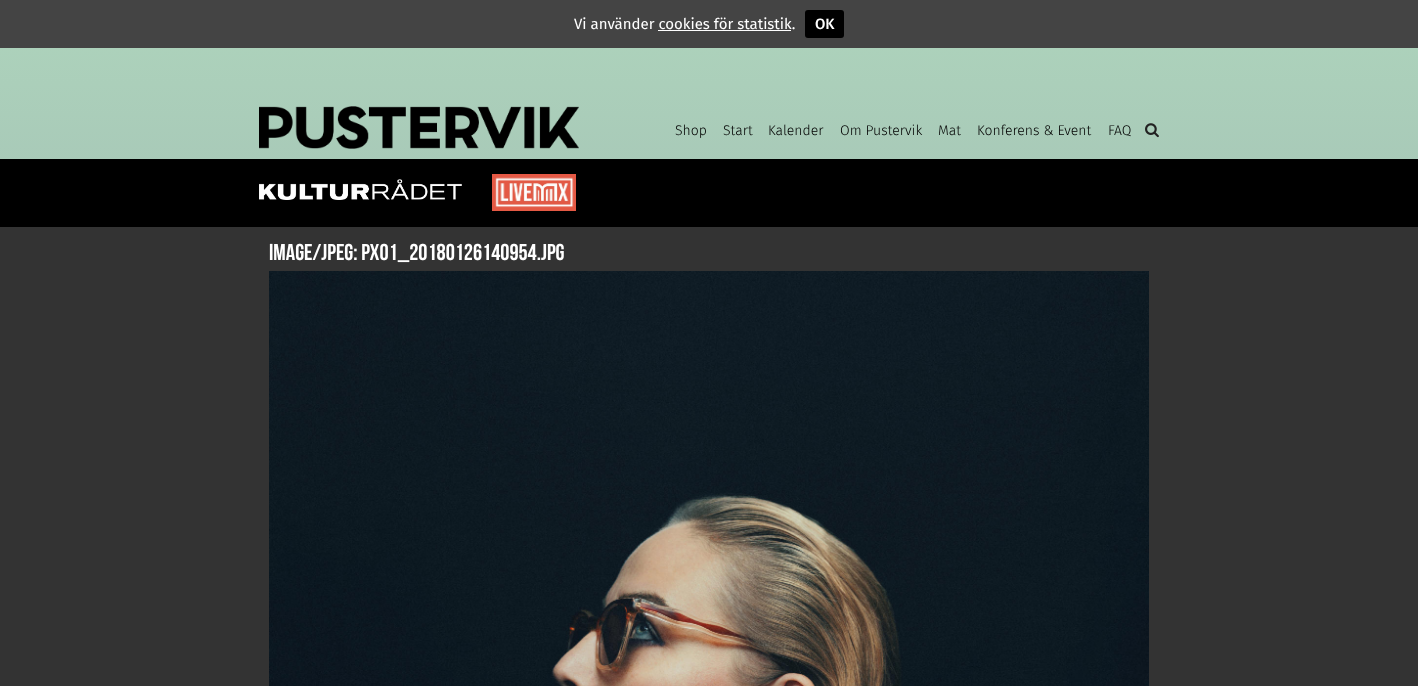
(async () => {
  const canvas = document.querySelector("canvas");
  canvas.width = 1418;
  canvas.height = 686;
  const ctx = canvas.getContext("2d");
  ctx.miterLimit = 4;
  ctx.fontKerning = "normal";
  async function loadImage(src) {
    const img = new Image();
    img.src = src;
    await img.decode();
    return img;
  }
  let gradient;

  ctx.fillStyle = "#ffffff";
  ctx.fillRect(0, 0, 1418, 686);
  gradient = ctx.createLinearGradient(709, 0, 709, 686);
  gradient.addColorStop(0, "#aed4bc");
  gradient.addColorStop(1, "#96aaac");
  ctx.fillStyle = gradient;
  ctx.fillRect(0, 48, 1418, 111);
  ctx.fillStyle = "#444444";
  ctx.fillRect(0, 0, 1418, 48);
  ctx.fillStyle = "#000000";
  ctx.beginPath();
  ctx.roundRect(805, 10, 39, 28, 3);
  ctx.fill();
  ctx.fillStyle = "#ffffff";
  ctx.fillRect(658, 30, 133, 1);
  ctx.fillStyle = "#000000";
  ctx.fillRect(0, 159, 1418, 68);
  ctx.drawImage(await loadImage("img/1.png"), 259, 106, 320, 43);
  ctx.drawImage(await loadImage("img/2.png"), 1145, 123, 14, 15);
  ctx.drawImage(await loadImage("img/3.png"), 259, 179, 203, 21);
  ctx.drawImage(await loadImage("img/4.png"), 492, 174, 84, 37);
  ctx.fillStyle = "#333333";
  ctx.fillRect(0, 227, 1418, 459);
  ctx.drawImage(await loadImage("img/5.png"), 269, 271, 880, 415);
  ctx.font = "15px Fira Sans";
  ctx.fillStyle = "#ffffff";
  ctx.fillText("Vi använder cookies för statistik.", 574, 29);
  ctx.font = "500 15px Fira Sans";
  ctx.fillText("OK", 815, 29);
  ctx.font = "300 14px Fira Sans";
  ctx.fillStyle = "#000000";
  for (const [text, x, y] of [
    ["Shop", 675, 135],
    ["Start", 723, 135],
    ["Kalender", 768, 135],
    ["Om Pustervik", 840, 135],
    ["Mat", 938, 135],
    ["Konferens & Event", 977, 135],
    ["FAQ", 1108, 135],
  ]) {
    ctx.fillText(text, x, y);
  }
  ctx.font = "23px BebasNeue";
  ctx.fillStyle = "#ffffff";
  ctx.fillText("image/jpeg: PX01_20180126140954.jpg", 269, 260);
})();
